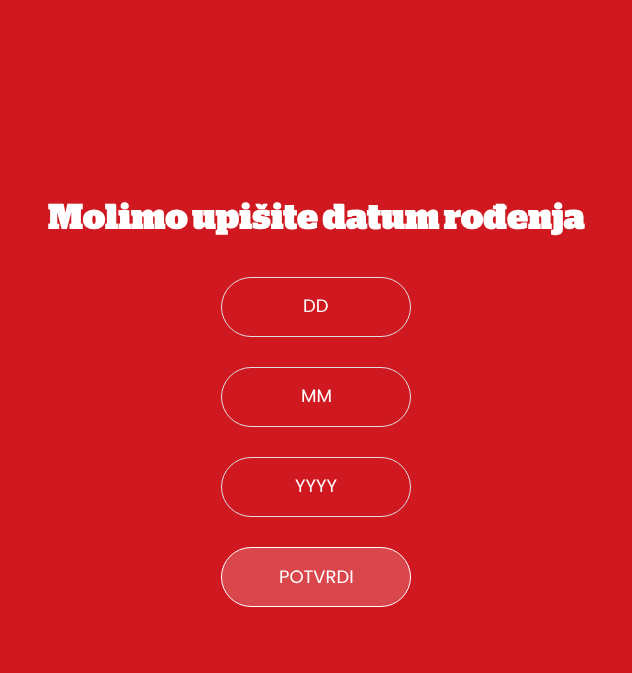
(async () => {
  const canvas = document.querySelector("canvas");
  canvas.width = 632;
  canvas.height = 673;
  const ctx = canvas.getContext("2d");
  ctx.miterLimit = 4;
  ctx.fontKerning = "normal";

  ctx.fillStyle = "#cf181f";
  ctx.fillRect(0, 0, 632, 673);
  ctx.beginPath();
  ctx.roundRect(221.5, 277.5, 189, 59, 29.5);
  ctx.strokeStyle = "#dedee5";
  ctx.stroke();
  ctx.beginPath();
  ctx.roundRect(221.5, 367.5, 189, 59, 29.5);
  ctx.stroke();
  ctx.beginPath();
  ctx.roundRect(221.5, 457.5, 189, 59, 29.5);
  ctx.stroke();
  ctx.fillStyle = "#d9464c";
  ctx.beginPath();
  ctx.roundRect(221.5, 547.5, 189, 59, 29.5);
  ctx.fill();
  ctx.strokeStyle = "#ffffff";
  ctx.stroke();
  ctx.font = "900 36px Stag";
  ctx.fillStyle = "#ffffff";
  ctx.fillText("Molimo upišite datum rođenja", 48, 229);
  ctx.font = "18px Poppins";
  for (const [text, x, y] of [
    ["DD", 303, 312],
    ["MM", 301, 402],
    ["YYYY", 295, 492],
    ["POTVRDI", 279, 583],
  ]) {
    ctx.fillText(text, x, y);
  }
})();
